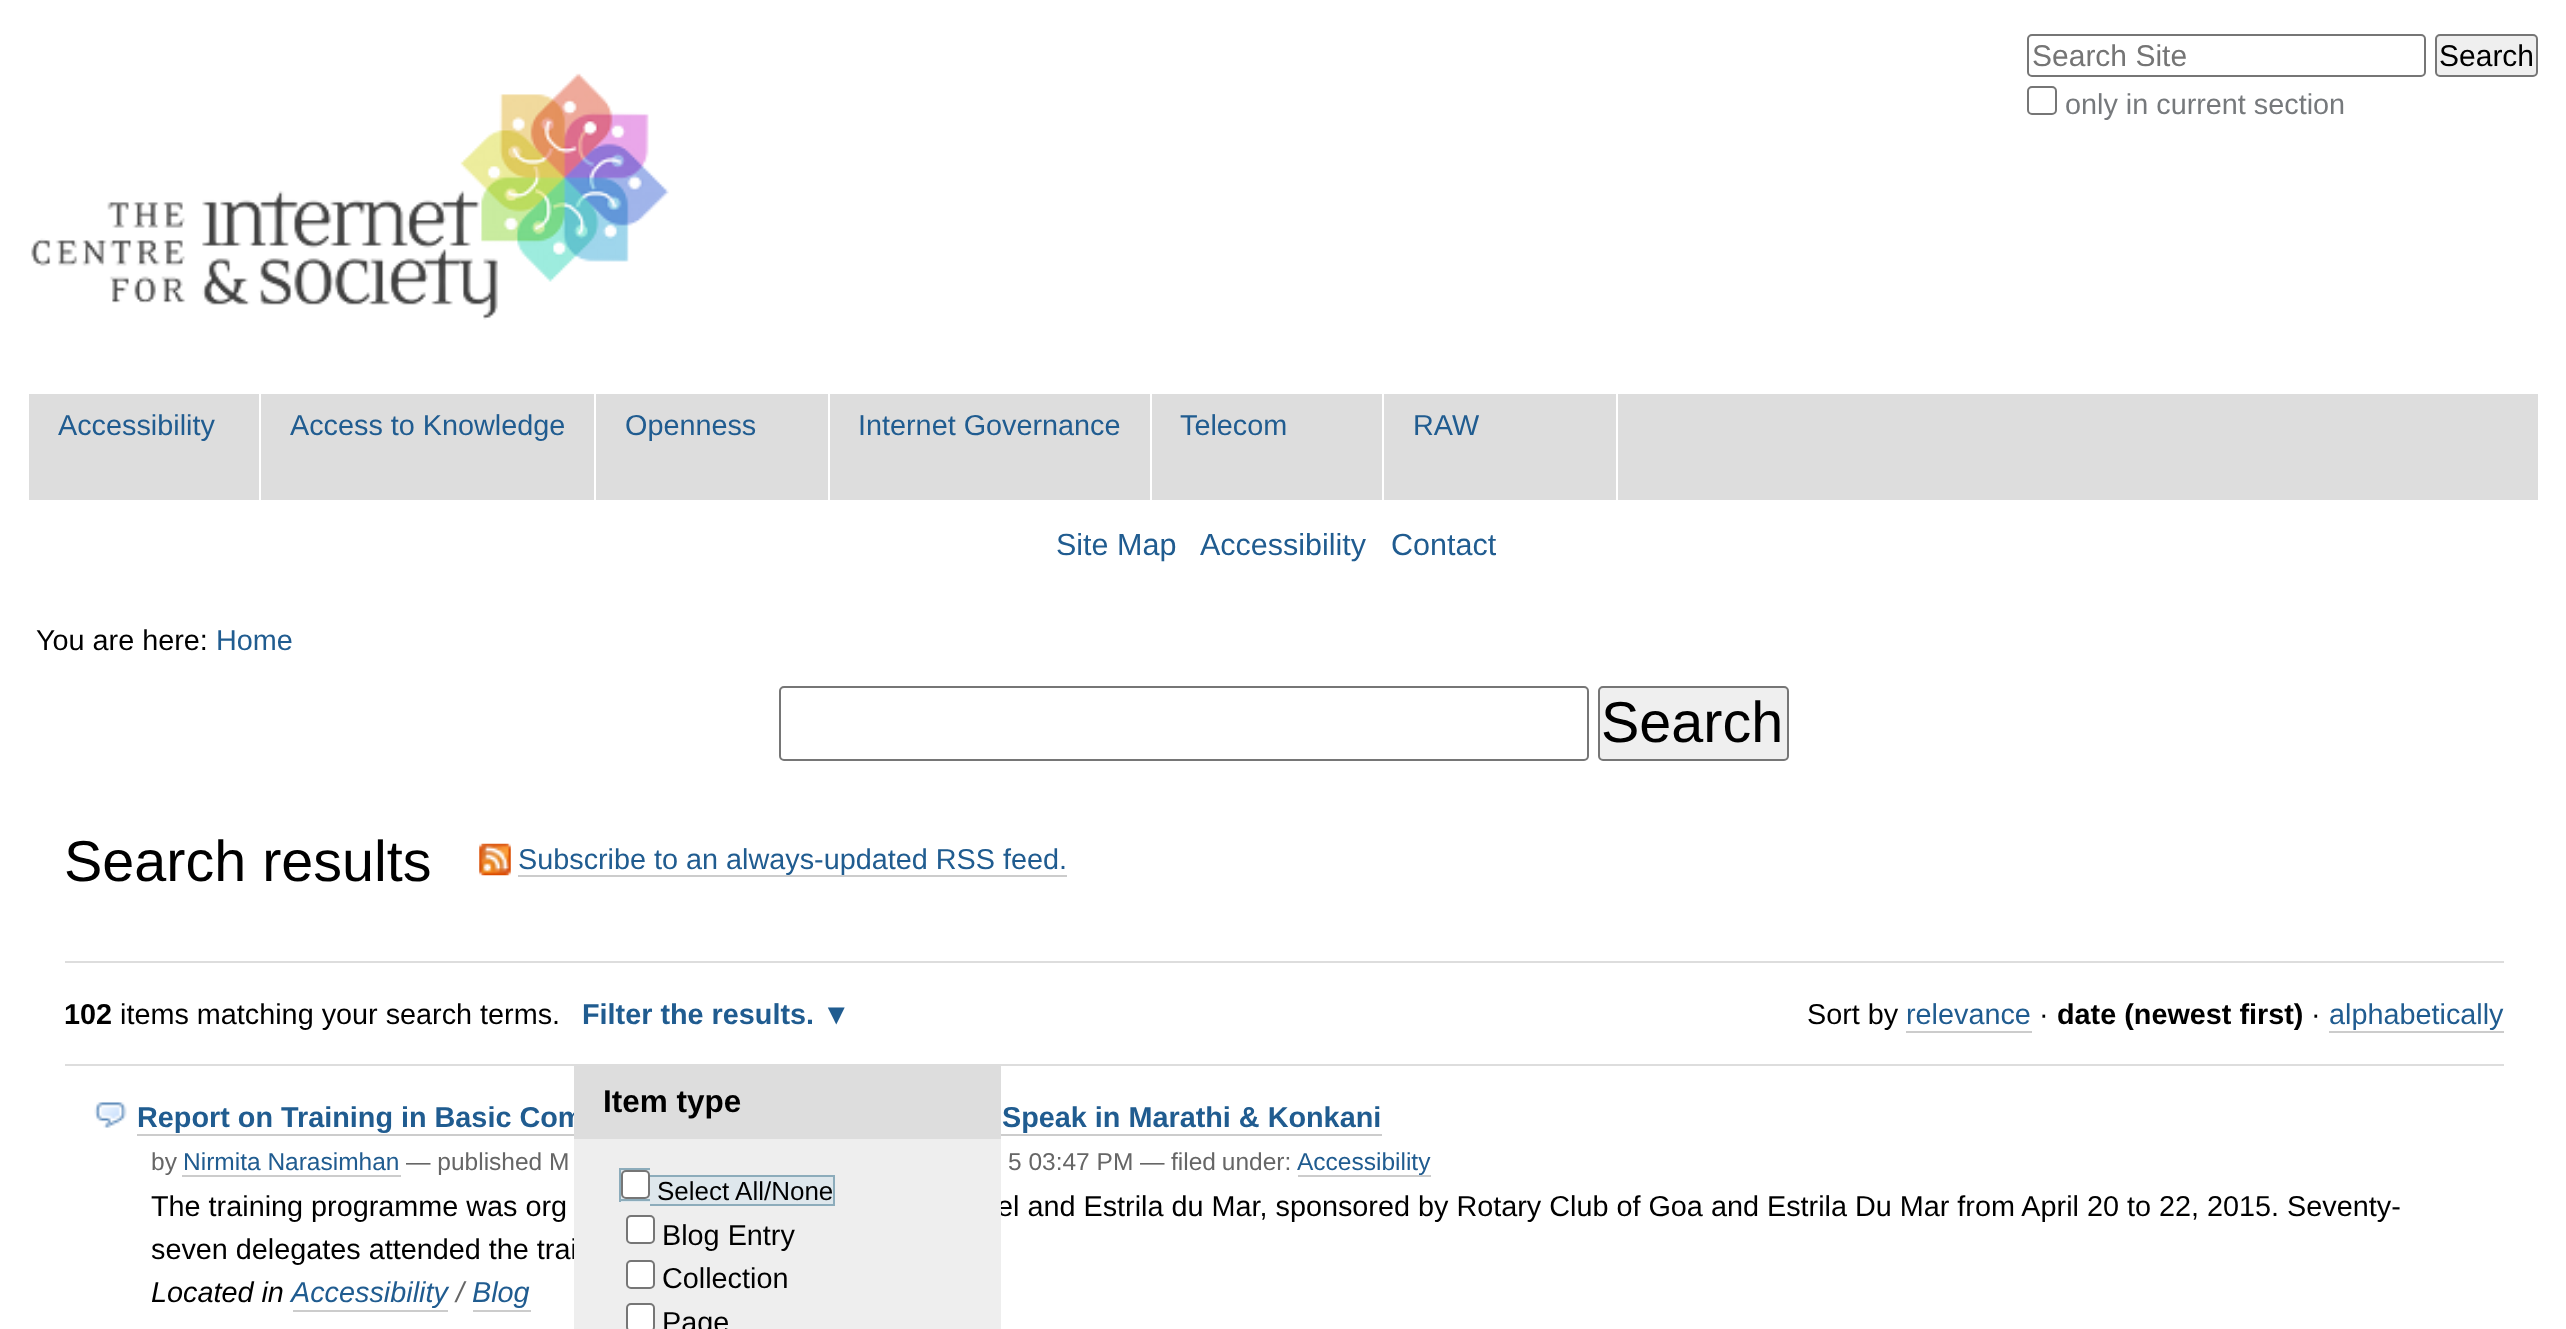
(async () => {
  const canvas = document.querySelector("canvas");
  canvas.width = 2566;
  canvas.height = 1329;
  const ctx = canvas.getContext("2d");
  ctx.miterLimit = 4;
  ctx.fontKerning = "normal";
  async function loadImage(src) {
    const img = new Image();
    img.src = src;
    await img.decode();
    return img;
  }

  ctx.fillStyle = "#ffffff";
  ctx.fillRect(0, 0, 2566, 1329);
  ctx.drawImage(await loadImage("img/1.png"), 31, 73, 638, 247);
  ctx.beginPath();
  ctx.roundRect(2028, 35, 397, 41, 4);
  ctx.strokeStyle = "#767676";
  ctx.lineWidth = 2;
  ctx.stroke();
  ctx.fillStyle = "#efefef";
  ctx.beginPath();
  ctx.roundRect(2436, 35, 101, 41, 4);
  ctx.fill();
  ctx.stroke();
  ctx.beginPath();
  ctx.roundRect(2028, 87, 28, 27, 4);
  ctx.stroke();
  for (const [x, y, w, h, color] of [
    [29, 394, 2509, 106, "#dddddd"],
    [259, 394, 2, 106, "#ffffff"],
    [594, 394, 2, 106, "#ffffff"],
    [828, 394, 2, 106, "#ffffff"],
    [1150, 394, 2, 106, "#ffffff"],
    [1382, 394, 2, 106, "#ffffff"],
    [1616, 394, 2, 106, "#ffffff"],
  ]) {
    ctx.fillStyle = color;
    ctx.fillRect(x, y, w, h);
  }
  ctx.beginPath();
  ctx.roundRect(780, 687, 808, 73, 4);
  ctx.stroke();
  ctx.fillStyle = "#efefef";
  ctx.beginPath();
  ctx.roundRect(1599, 687, 189, 73, 4);
  ctx.fill();
  ctx.stroke();
  ctx.drawImage(await loadImage("img/2.png"), 479, 843, 32, 33);
  for (const [x, y, w, h, color] of [
    [518, 875, 549, 2, "#cccccc"],
    [65, 961, 2439, 2, "#dddddd"],
    [65, 1064, 2439, 2, "#dddddd"],
    [1906, 1031, 126, 2, "#cccccc"],
    [2329, 1031, 175, 2, "#cccccc"],
  ]) {
    ctx.fillStyle = color;
    ctx.fillRect(x, y, w, h);
  }
  ctx.drawImage(await loadImage("img/3.png"), 94, 1102, 33, 26);
  for (const [x, y, w, h, color] of [
    [137, 1134, 1245, 2, "#cccccc"],
    [182, 1175, 219, 2, "#cccccc"],
    [1298, 1175, 133, 2, "#cccccc"],
    [293, 1310, 155, 2, "#cccccc"],
    [473, 1310, 58, 2, "#cccccc"],
  ]) {
    ctx.fillStyle = color;
    ctx.fillRect(x, y, w, h);
  }
  ctx.font = "30px Liberation Sans";
  ctx.fillStyle = "#757575";
  ctx.fillText("Search Site", 2032, 66);
  ctx.fillStyle = "#000000";
  ctx.fillText("Search", 2439, 66);
  ctx.font = "28.8px Liberation Sans";
  ctx.fillStyle = "#76797c";
  ctx.fillText("only in current section", 2065, 114);
  ctx.fillStyle = "#205c90";
  for (const [text, x, y] of [
    ["Accessibility", 58, 435],
    ["Access to Knowledge", 290, 435],
    ["Openness", 625, 435],
    ["Internet Governance", 858, 435],
    ["Telecom", 1180, 435],
    ["RAW", 1413, 435],
  ]) {
    ctx.fillText(text, x, y);
  }
  ctx.font = "30.5px Liberation Sans";
  for (const [text, x, y] of [
    ["Site Map", 1056, 555],
    ["Accessibility", 1200, 555],
    ["Contact", 1391, 555],
  ]) {
    ctx.fillText(text, x, y);
  }
  ctx.font = "28.8px Liberation Sans";
  ctx.fillStyle = "#000000";
  ctx.fillText("You are here:", 36, 650);
  ctx.fillStyle = "#205c90";
  ctx.fillText("Home", 216, 650);
  ctx.font = "57.5px Liberation Sans";
  ctx.fillStyle = "#000000";
  ctx.fillText("Search", 1601, 742);
  ctx.fillText("Search results", 64, 881);
  ctx.font = "28.8px Liberation Sans";
  ctx.fillStyle = "#205c90";
  ctx.fillText("Subscribe to an always-updated RSS feed.", 518, 869);
  ctx.font = "bold 28.8px Liberation Sans";
  ctx.fillStyle = "#000000";
  ctx.fillText("102", 64, 1024);
  ctx.font = "28.8px Liberation Sans";
  ctx.fillText("items matching your search terms.", 120, 1024);
  ctx.font = "bold 28.8px Liberation Sans";
  ctx.fillStyle = "#205c90";
  ctx.fillText("Filter the results. ▼", 582, 1024);
  ctx.font = "28.8px Liberation Sans";
  ctx.fillStyle = "#000000";
  ctx.fillText("Sort by", 1807, 1024);
  ctx.fillStyle = "#205c90";
  ctx.fillText("relevance", 1906, 1024);
  ctx.fillStyle = "#000000";
  ctx.fillText("·", 2039, 1024);
  ctx.font = "bold 28.8px Liberation Sans";
  ctx.fillText("date (newest first)", 2057, 1024);
  ctx.font = "28.8px Liberation Sans";
  ctx.fillText("·", 2311, 1024);
  ctx.fillStyle = "#205c90";
  ctx.fillText("alphabetically", 2329, 1024);
  ctx.font = "bold 28.8px Liberation Sans";
  ctx.fillText("Report on Training in Basic Com", 137, 1127);
  ctx.fillStyle = "#dddddd";
  ctx.fillRect(574, 1066, 427, 73);
  ctx.font = "bold 31.5px Liberation Sans";
  ctx.fillStyle = "#000000";
  ctx.fillText("Item type", 603, 1112);
  ctx.font = "bold 28.8px Liberation Sans";
  ctx.fillStyle = "#205c90";
  ctx.fillText("Speak in Marathi & Konkani", 1002, 1127);
  ctx.font = "24.5px Liberation Sans";
  ctx.fillStyle = "#666666";
  ctx.fillText("by", 151, 1170);
  ctx.fillStyle = "#205c90";
  ctx.fillText("Nirmita Narasimhan", 183, 1170);
  ctx.fillStyle = "#666666";
  ctx.fillText("— published M", 406, 1170);
  ctx.fillText("5 03:47 PM —", 1008, 1170);
  ctx.wordSpacing = "-1px";
  ctx.fillText("filed under:", 1171, 1170);
  ctx.wordSpacing = "0px";
  ctx.fillStyle = "#205c90";
  ctx.fillText("Accessibility", 1297, 1170);
  ctx.font = "28.8px Liberation Sans";
  ctx.fillStyle = "#000000";
  for (const [text, x, y] of [
    ["The training programme was org", 151, 1216],
    ["el and Estrila du Mar, sponsored by Rotary Club of Goa and Estrila Du Mar from April 20 to 22, 2015. Seventy-", 997, 1216],
    ["seven delegates attended the trai", 151, 1259],
  ]) {
    ctx.fillText(text, x, y);
  }
  ctx.fillStyle = "#eeeeee";
  ctx.fillRect(574, 1139, 427, 190);
  ctx.fillStyle = "#dee7ec";
  ctx.fillRect(657, 1177, 176, 27);
  ctx.font = "26px Liberation Sans";
  ctx.fillStyle = "#000000";
  ctx.fillText("Select All/None", 657, 1200);
  ctx.fillStyle = "#dee7ec";
  ctx.fillRect(621, 1170, 29, 32);
  ctx.fillStyle = "#ffffff";
  ctx.beginPath();
  ctx.roundRect(622, 1171, 27, 27, 4);
  ctx.fill();
  ctx.stroke();
  for (const [x, y, w, h, color] of [
    [650, 1175, 7, 31, "#dee7ec"],
    [650, 1175, 185, 2, "#8cacbb"],
    [833, 1175, 2, 31, "#8cacbb"],
    [657, 1204, 178, 2, "#8cacbb"],
    [650, 1204, 7, 2, "#8cacbb"],
    [619, 1199, 31, 2, "#8cacbb"],
    [619, 1168, 31, 2, "#8cacbb"],
    [619, 1168, 2, 34, "#8cacbb"],
  ]) {
    ctx.fillStyle = color;
    ctx.fillRect(x, y, w, h);
  }
  ctx.font = "28.8px Liberation Sans";
  ctx.fillStyle = "#000000";
  ctx.fillText("Page", 662, 1332);
  ctx.fillStyle = "#ffffff";
  ctx.beginPath();
  ctx.roundRect(627, 1304, 27, 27, 4);
  ctx.fill();
  ctx.stroke();
  ctx.fillStyle = "#000000";
  ctx.fillText("Collection", 662, 1288);
  ctx.fillStyle = "#ffffff";
  ctx.beginPath();
  ctx.roundRect(627, 1261, 27, 27, 4);
  ctx.fill();
  ctx.stroke();
  ctx.fillStyle = "#000000";
  ctx.fillText("Blog Entry", 662, 1245);
  ctx.fillStyle = "#ffffff";
  ctx.beginPath();
  ctx.roundRect(627, 1216, 27, 27, 4);
  ctx.fill();
  ctx.stroke();
  ctx.font = "italic 28.8px Liberation Sans";
  ctx.fillStyle = "#000000";
  ctx.fillText("Located in", 151, 1302);
  ctx.fillStyle = "#205c90";
  ctx.fillText("Accessibility", 291, 1302);
  ctx.fillStyle = "#666666";
  ctx.fillText("/", 456, 1302);
  ctx.fillStyle = "#205c90";
  ctx.fillText("Blog", 472, 1302);
})();
